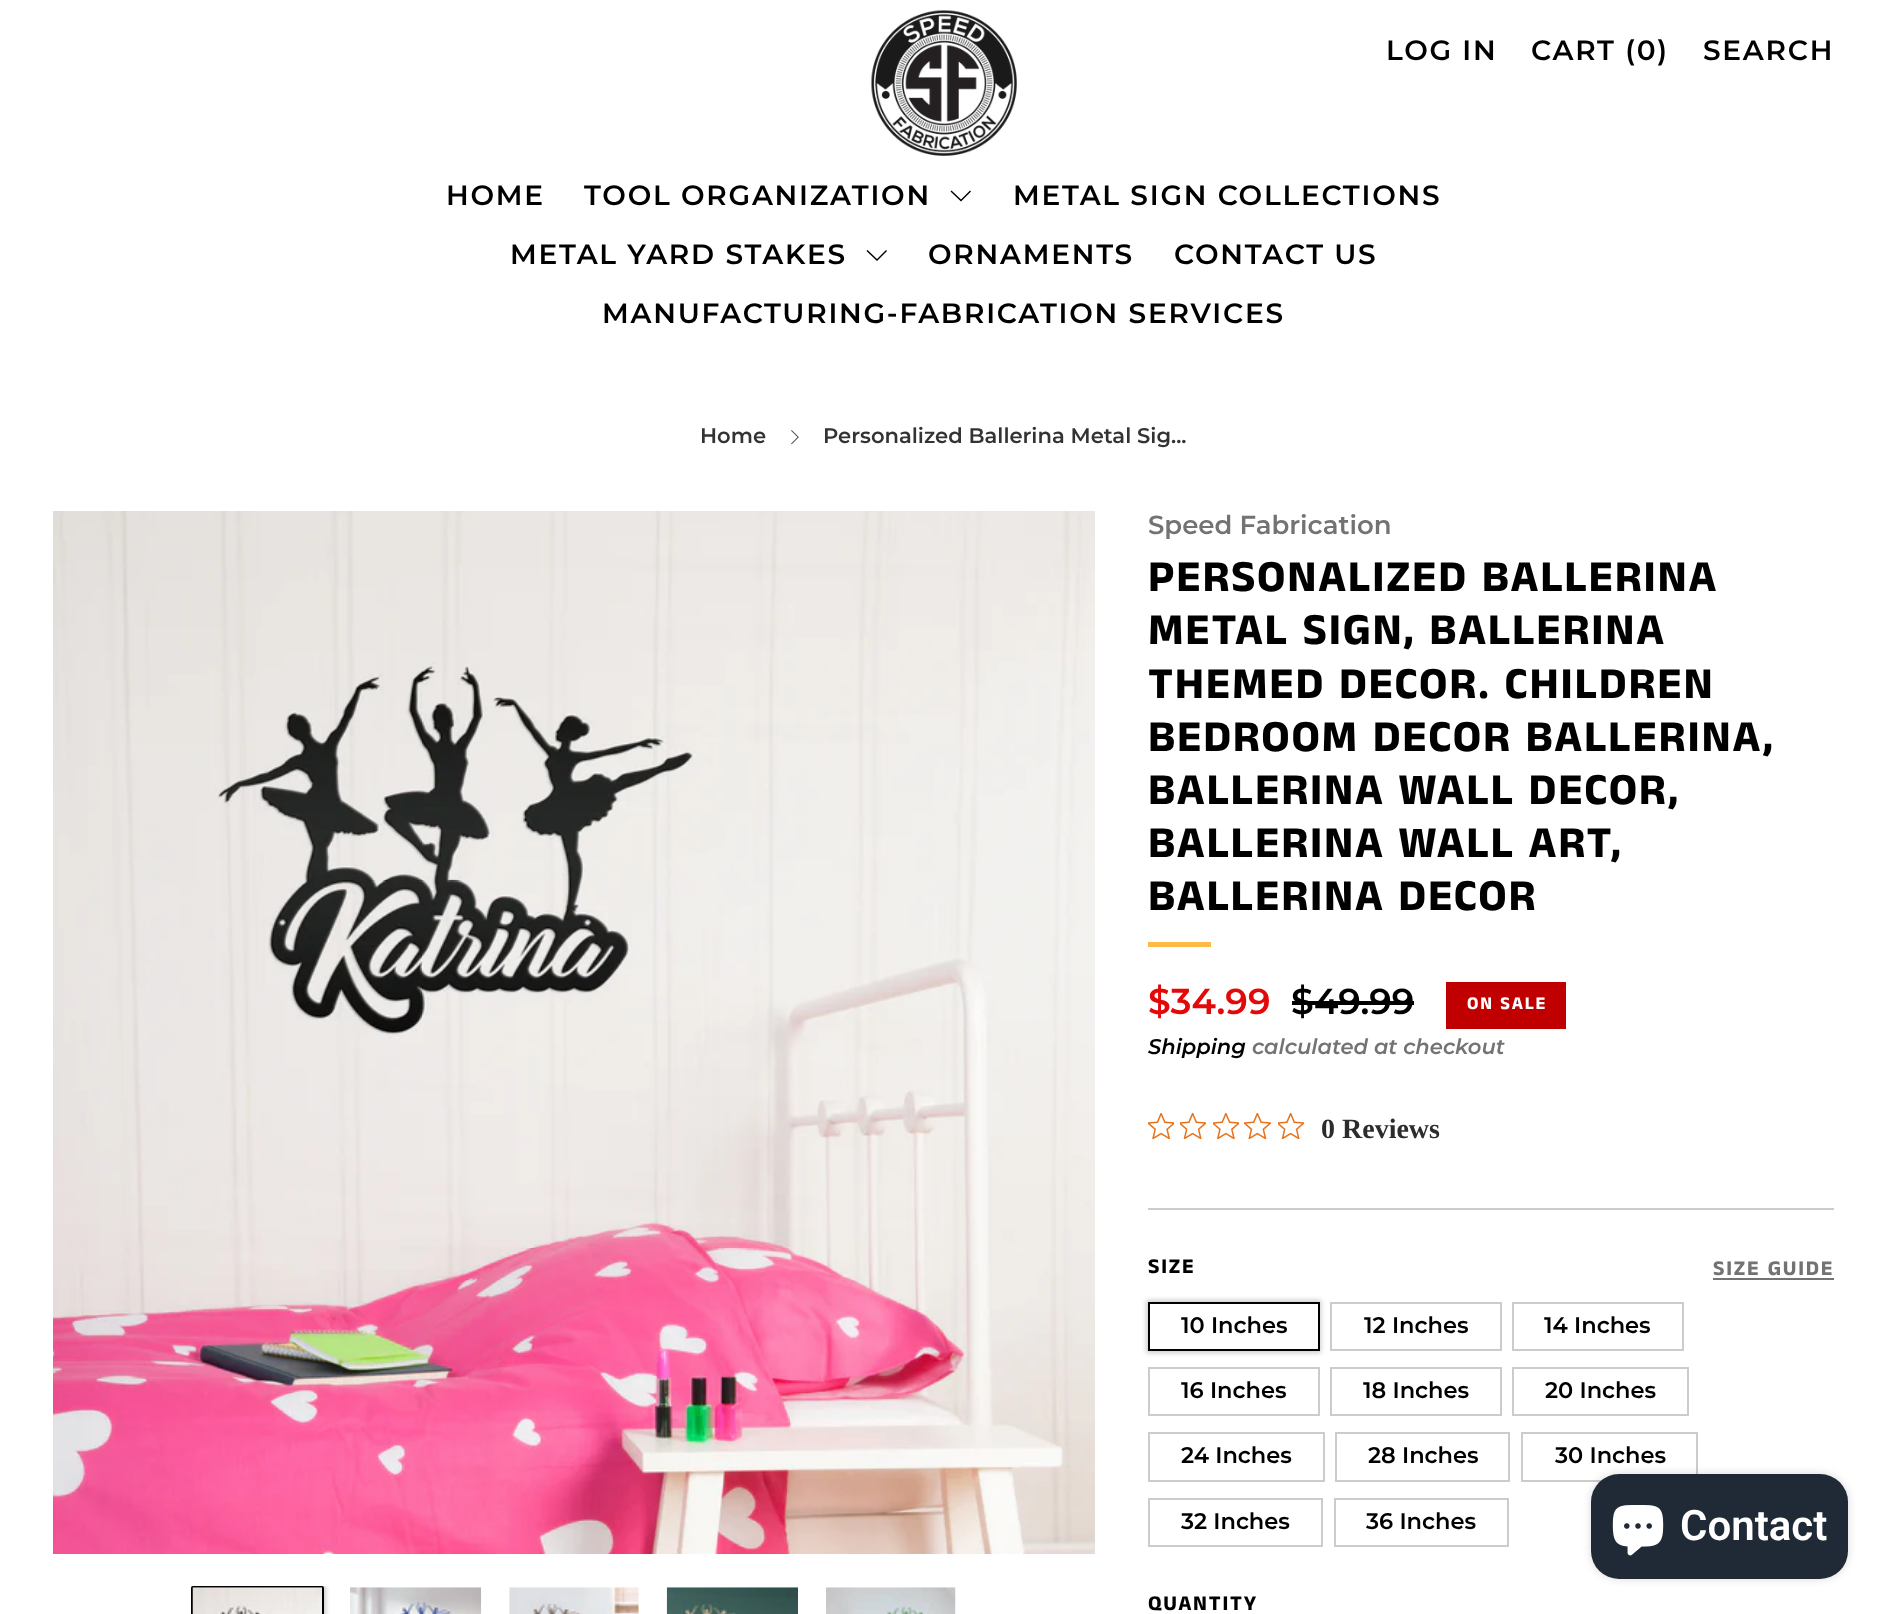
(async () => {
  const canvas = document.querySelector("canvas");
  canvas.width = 1886;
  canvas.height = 1614;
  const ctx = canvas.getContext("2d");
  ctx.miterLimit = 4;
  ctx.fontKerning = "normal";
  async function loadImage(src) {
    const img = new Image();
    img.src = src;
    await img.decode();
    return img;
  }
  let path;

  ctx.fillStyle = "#ffffff";
  ctx.fillRect(0, 0, 1886, 1614);
  ctx.drawImage(await loadImage("img/1.png"), 871, 10, 146, 146);
  ctx.fillStyle = "#000000";
  path = new Path2D("M951.5 190.5L950.5 191.5L961 201.5L971 191.5L970 190.5L961 199.5Z");
  ctx.fill(path);
  path = new Path2D("M867.5 250L866.5 251L877 261L887 251L886 250L877 259Z");
  ctx.fill(path);
  ctx.drawImage(await loadImage("img/2.png"), 791, 430, 8, 15);
  ctx.drawImage(await loadImage("img/3.png"), 53, 511, 1042, 1043);
  ctx.save();
  ctx.beginPath();
  ctx.rect(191, 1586, 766, 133);
  ctx.clip();
  ctx.fillStyle = "rgba(0, 0, 0, 0.2)";
  ctx.filter = "blur(2.5px)";
  ctx.beginPath();
  ctx.roundRect(189, 1584, 137, 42, 4);
  ctx.fill();
  ctx.filter = "none";
  ctx.restore();
  ctx.beginPath();
  ctx.roundRect(192, 1587, 131, 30, 1);
  ctx.strokeStyle = "#000000";
  ctx.lineWidth = 2;
  ctx.stroke();
  ctx.drawImage(await loadImage("img/4.png"), 192, 1587, 130, 27);
  ctx.drawImage(await loadImage("img/5.png"), 350, 1587, 132, 27);
  ctx.drawImage(await loadImage("img/6.png"), 509, 1587, 130, 27);
  ctx.drawImage(await loadImage("img/7.png"), 666, 1587, 132, 27);
  ctx.drawImage(await loadImage("img/8.png"), 826, 1587, 130, 27);
  for (const [x, y, w, h, color] of [
    [1148, 942, 63, 5, "#feba47"],
    [1292, 1001, 122, 4, "#000000"],
    [1446, 982, 120, 47, "#c00000"],
  ]) {
    ctx.fillStyle = color;
    ctx.fillRect(x, y, w, h);
  }
  ctx.drawImage(await loadImage("img/9.png"), 1148, 1113, 26, 26);
  ctx.drawImage(await loadImage("img/10.png"), 1180, 1113, 26, 26);
  ctx.drawImage(await loadImage("img/11.png"), 1213, 1113, 26, 26);
  ctx.drawImage(await loadImage("img/12.png"), 1244, 1113, 27, 26);
  ctx.drawImage(await loadImage("img/10.png"), 1278, 1113, 26, 26);
  ctx.fillStyle = "#cccccc";
  ctx.fillRect(1148, 1208, 686, 2);
  ctx.fillStyle = "#737373";
  ctx.fillRect(1713, 1278, 121, 2);
  ctx.save();
  path = new Path2D("M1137 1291H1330V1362H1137ZM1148 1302H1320V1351H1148Z");
  ctx.clip(path, "evenodd");
  ctx.fillStyle = "rgba(0, 0, 0, 0.2)";
  ctx.filter = "blur(2.5px)";
  ctx.beginPath();
  ctx.rect(1146, 1300, 175, 53);
  ctx.fill();
  ctx.filter = "none";
  ctx.restore();
  ctx.strokeRect(1149, 1303, 170, 47);
  ctx.strokeStyle = "#cccccc";
  ctx.strokeRect(1331, 1303, 170, 47);
  ctx.strokeRect(1513, 1303, 170, 47);
  ctx.strokeRect(1149, 1368, 170, 47);
  ctx.strokeRect(1331, 1368, 170, 47);
  ctx.strokeRect(1513, 1368, 175, 47);
  ctx.strokeRect(1149, 1433, 175, 48);
  ctx.strokeRect(1336, 1433, 173, 48);
  ctx.strokeRect(1522, 1433, 175, 48);
  ctx.strokeRect(1149, 1499, 173, 47);
  ctx.strokeRect(1335, 1499, 173, 47);
  ctx.fillStyle = "rgba(0, 0, 0, 0.15)";
  ctx.filter = "blur(4.5px)";
  ctx.beginPath();
  ctx.roundRect(1591, 1474, 257, 105, 28);
  ctx.fill();
  ctx.filter = "none";
  ctx.fillStyle = "#202a36";
  ctx.beginPath();
  ctx.roundRect(1591, 1474, 257, 105, 28);
  ctx.fill();
  ctx.drawImage(await loadImage("img/13.png"), 1612, 1505, 52, 51);
  ctx.letterSpacing = "1.75px";
  ctx.font = "600 28px Montserrat";
  ctx.fillStyle = "#000000";
  for (const [text, x, y] of [
    ["LOG IN", 1386, 60],
    ["CART (0)", 1531, 60],
    ["SEARCH", 1703, 60],
    ["HOME", 446, 205],
    ["TOOL ORGANIZATION", 584, 205],
    ["METAL SIGN COLLECTIONS", 1013, 205],
    ["METAL YARD STAKES", 510, 264],
    ["ORNAMENTS", 928, 264],
    ["CONTACT US", 1174, 264],
    ["MANUFACTURING-FABRICATION SERVICES", 602, 323],
  ]) {
    ctx.fillText(text, x, y);
  }
  ctx.letterSpacing = "0px";
  ctx.font = "600 21.1px Montserrat";
  ctx.fillStyle = "#333333";
  ctx.fillText("Home", 700, 443);
  ctx.fillText("Personalized Ballerina Metal Sig...", 823, 443);
  ctx.font = "600 26px Montserrat";
  ctx.fillStyle = "#737373";
  ctx.fillText("Speed Fabrication", 1148, 534);
  ctx.letterSpacing = "1.75px";
  ctx.font = "bold 44.75px Anek Tamil";
  ctx.fillStyle = "#000000";
  for (const [text, x, y] of [
    ["PERSONALIZED BALLERINA", 1148, 591],
    ["METAL SIGN, BALLERINA", 1148, 644],
    ["THEMED DECOR. CHILDREN", 1148, 698],
    ["BEDROOM DECOR BALLERINA,", 1148, 751],
    ["BALLERINA WALL DECOR,", 1148, 804],
    ["BALLERINA WALL ART,", 1148, 857],
    ["BALLERINA DECOR", 1148, 910],
  ]) {
    ctx.fillText(text, x, y);
  }
  ctx.letterSpacing = "0px";
  ctx.font = "600 36px Montserrat";
  ctx.fillStyle = "#e40909";
  ctx.fillText("$34.99", 1148, 1014);
  ctx.fillStyle = "#000000";
  ctx.fillText("$49.99", 1291, 1014);
  ctx.letterSpacing = "1.75px";
  ctx.font = "bold 18px Anek Tamil";
  ctx.fillStyle = "#ffffff";
  ctx.fillText("ON SALE", 1467, 1009);
  ctx.letterSpacing = "0px";
  ctx.font = "italic 600 21.1px Montserrat";
  ctx.fillStyle = "#000000";
  ctx.fillText("Shipping", 1148, 1054);
  ctx.fillStyle = "#737373";
  ctx.fillText("calculated at checkout", 1252, 1054);
  ctx.font = "bold 28px Liberation Serif";
  ctx.fillStyle = "#2c2c2c";
  ctx.fillText("0 Reviews", 1321, 1138);
  ctx.letterSpacing = "1.75px";
  ctx.font = "bold 21.25px Anek Tamil";
  ctx.fillStyle = "#000000";
  ctx.fillText("SIZE", 1148, 1273);
  ctx.fillStyle = "#737373";
  ctx.fillText("SIZE GUIDE", 1713, 1275);
  ctx.letterSpacing = "0px";
  ctx.font = "600 22.5px Montserrat";
  ctx.fillStyle = "#000000";
  for (const [text, x, y] of [
    ["10 Inches", 1181, 1333],
    ["12 Inches", 1364, 1333],
    ["14 Inches", 1544, 1333],
    ["16 Inches", 1181, 1398],
    ["18 Inches", 1363, 1398],
    ["20 Inches", 1545, 1398],
    ["24 Inches", 1181, 1463],
    ["28 Inches", 1368, 1463],
    ["30 Inches", 1555, 1463],
    ["32 Inches", 1181, 1529],
    ["36 Inches", 1366, 1529],
  ]) {
    ctx.fillText(text, x, y);
  }
  ctx.letterSpacing = "1.75px";
  ctx.font = "bold 21.25px Anek Tamil";
  ctx.fillText("QUANTITY", 1148, 1610);
  ctx.letterSpacing = "0px";
  ctx.font = "600 42px Roboto";
  ctx.fillStyle = "#ffffff";
  ctx.fillText("Contact", 1680, 1540);
})();
